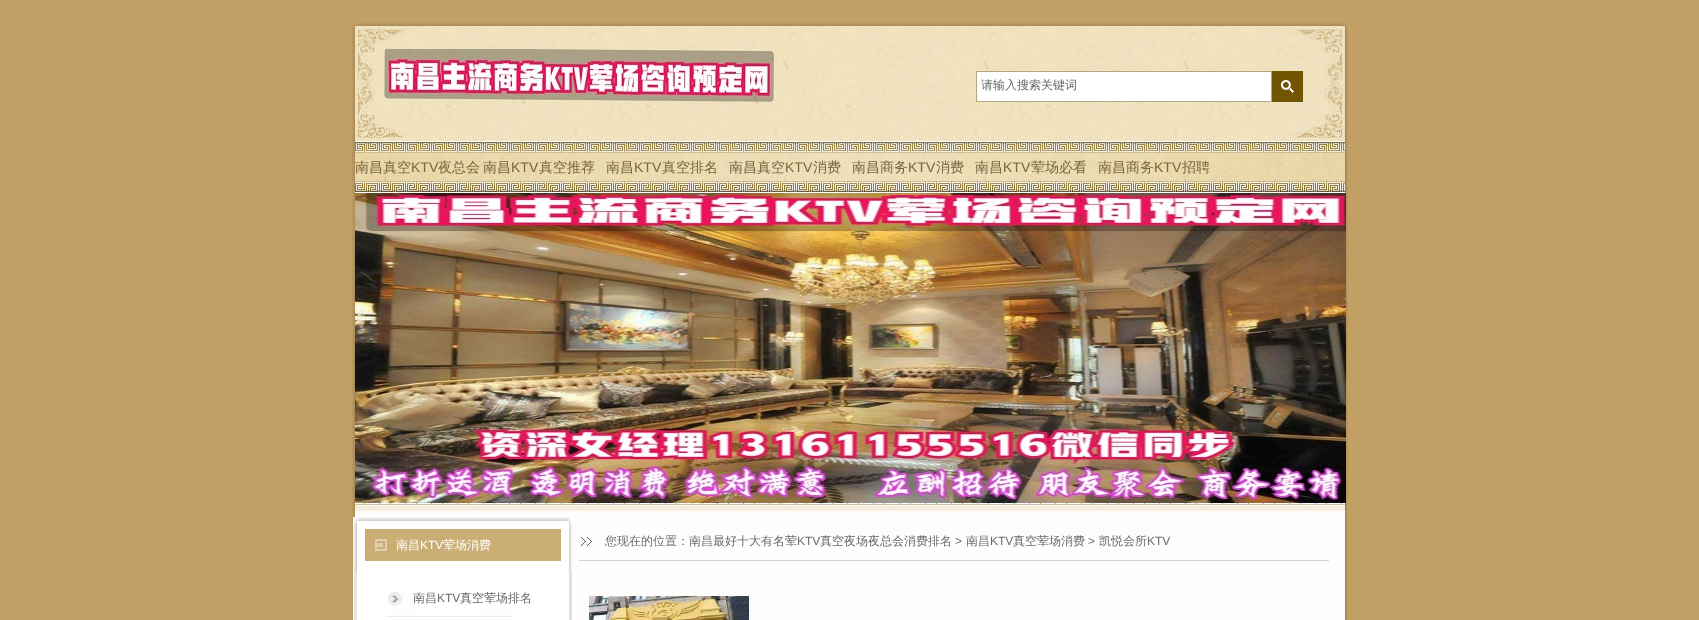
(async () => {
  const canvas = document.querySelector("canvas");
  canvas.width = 1699;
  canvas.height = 620;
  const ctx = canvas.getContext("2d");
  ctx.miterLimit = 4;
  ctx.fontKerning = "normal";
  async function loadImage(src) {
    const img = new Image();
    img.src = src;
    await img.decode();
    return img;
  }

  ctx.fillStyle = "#c2a065";
  ctx.fillRect(0, 0, 1699, 620);
  ctx.drawImage(await loadImage("img/1.png"), 352, 23, 996, 488);
  ctx.drawImage(await loadImage("img/2.png"), 382, 49, 400, 55);
  ctx.drawImage(await loadImage("img/3.png"), 976, 71, 296, 31);
  ctx.drawImage(await loadImage("img/4.png"), 1272, 71, 31, 31);
  ctx.drawImage(await loadImage("img/5.png"), 355, 142, 990, 50);
  ctx.drawImage(await loadImage("img/6.png"), 355, 193, 991, 310);
  ctx.drawImage(await loadImage("img/7.png"), 352, 511, 996, 109);
  for (const [x, y, w, h, color] of [
    [353, 572, 220, 48, "#ffffff"],
    [354, 572, 3, 48, "#e3e3e3"],
    [569, 572, 3, 48, "#dedede"],
  ]) {
    ctx.fillStyle = color;
    ctx.fillRect(x, y, w, h);
  }
  ctx.drawImage(await loadImage("img/8.png"), 353, 517, 208, 55);
  ctx.drawImage(await loadImage("img/9.png"), 561, 517, 12, 55);
  ctx.drawImage(await loadImage("img/10.png"), 386, 592, 127, 25);
  ctx.drawImage(await loadImage("img/11.png"), 579, 537, 750, 24);
  ctx.drawImage(await loadImage("img/12.png"), 589, 596, 160, 24);
  ctx.font = "500 12px WenQuanYi Zen Hei";
  ctx.fillStyle = "#696969";
  ctx.fillText("请输入搜索关键词", 981, 89);
  ctx.font = "500 14px WenQuanYi Zen Hei";
  ctx.fillStyle = "#776540";
  ctx.fillText("南昌真空", 355, 172);
  ctx.font = "14px Liberation Sans";
  ctx.fillText("KTV", 411, 172);
  ctx.font = "500 14px WenQuanYi Zen Hei";
  ctx.fillText("夜总会", 438, 172);
  ctx.fillText("南昌", 483, 172);
  ctx.font = "14px Liberation Sans";
  ctx.fillText("KTV", 511, 172);
  ctx.font = "500 14px WenQuanYi Zen Hei";
  ctx.fillText("真空推荐", 539, 172);
  ctx.fillText("南昌", 606, 172);
  ctx.font = "14px Liberation Sans";
  ctx.fillText("KTV", 634, 172);
  ctx.font = "500 14px WenQuanYi Zen Hei";
  ctx.fillText("真空排名", 662, 172);
  ctx.fillText("南昌真空", 729, 172);
  ctx.font = "14px Liberation Sans";
  ctx.fillText("KTV", 785, 172);
  ctx.font = "500 14px WenQuanYi Zen Hei";
  ctx.fillText("消费", 813, 172);
  ctx.fillText("南昌商务", 852, 172);
  ctx.font = "14px Liberation Sans";
  ctx.fillText("KTV", 908, 172);
  ctx.font = "500 14px WenQuanYi Zen Hei";
  ctx.fillText("消费", 936, 172);
  ctx.fillText("南昌", 975, 172);
  ctx.font = "14px Liberation Sans";
  ctx.fillText("KTV", 1003, 172);
  ctx.font = "500 14px WenQuanYi Zen Hei";
  ctx.fillText("荤场必看", 1031, 172);
  ctx.fillText("南昌商务", 1098, 172);
  ctx.font = "14px Liberation Sans";
  ctx.fillText("KTV", 1154, 172);
  ctx.font = "500 14px WenQuanYi Zen Hei";
  ctx.fillText("招聘", 1182, 172);
  ctx.font = "500 12px WenQuanYi Zen Hei";
  ctx.fillStyle = "#ffffff";
  ctx.fillText("南昌", 396, 549);
  ctx.font = "12px Liberation Sans";
  ctx.fillText("KTV", 420, 549);
  ctx.font = "500 12px WenQuanYi Zen Hei";
  ctx.fillText("荤场消费", 443, 549);
  ctx.fillStyle = "#696969";
  ctx.fillText("南昌", 413, 602);
  ctx.font = "12px Liberation Sans";
  ctx.fillText("KTV", 437, 602);
  ctx.font = "500 12px WenQuanYi Zen Hei";
  ctx.fillText("真空荤场排名", 460, 602);
  ctx.fillText("您现在的位置：南昌最好十大有名荤", 605, 545);
  ctx.font = "12px Liberation Sans";
  ctx.fillText("KTV", 797, 545);
  ctx.font = "500 12px WenQuanYi Zen Hei";
  ctx.fillText("真空夜场夜总会消费排名", 820, 545);
  ctx.font = "12px Liberation Sans";
  ctx.fillText(">", 955, 545);
  ctx.font = "500 12px WenQuanYi Zen Hei";
  ctx.fillText("南昌", 966, 545);
  ctx.font = "12px Liberation Sans";
  ctx.fillText("KTV", 990, 545);
  ctx.font = "500 12px WenQuanYi Zen Hei";
  ctx.fillText("真空荤场消费", 1013, 545);
  ctx.font = "12px Liberation Sans";
  ctx.fillText(">", 1088, 545);
  ctx.font = "500 12px WenQuanYi Zen Hei";
  ctx.fillText("凯悦会所", 1099, 545);
  ctx.font = "12px Liberation Sans";
  ctx.fillText("KTV", 1147, 545);
})();
